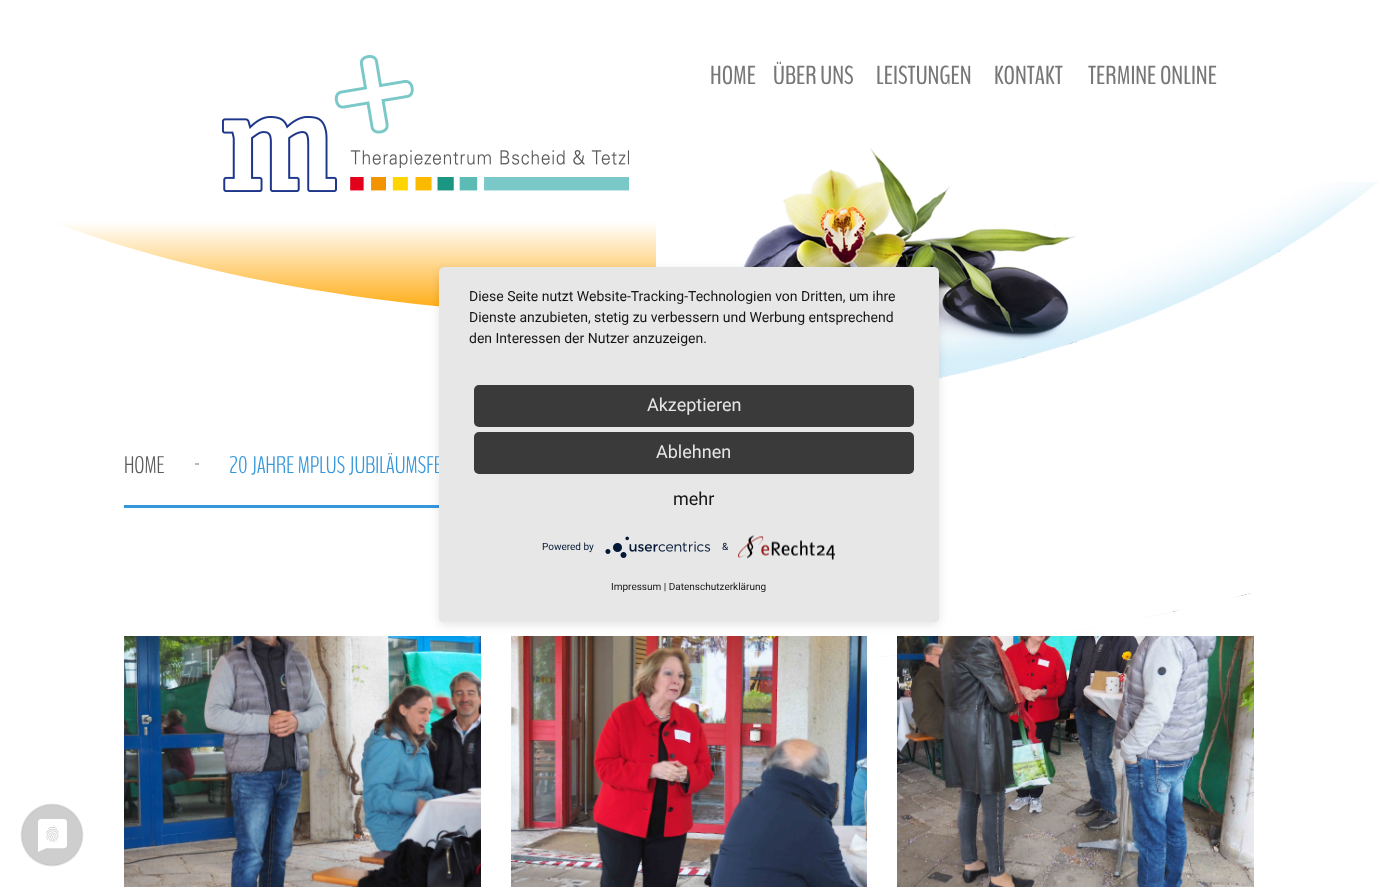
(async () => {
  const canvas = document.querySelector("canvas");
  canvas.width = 1378;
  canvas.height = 887;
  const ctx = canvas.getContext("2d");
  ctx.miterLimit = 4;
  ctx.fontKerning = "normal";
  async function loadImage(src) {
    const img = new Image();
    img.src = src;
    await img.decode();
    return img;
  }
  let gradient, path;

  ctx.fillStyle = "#ffffff";
  ctx.fillRect(0, 0, 1378, 887);
  gradient = ctx.createLinearGradient(233, 317, 233, 0);
  gradient.addColorStop(0, "#ffa500");
  gradient.addColorStop(0.3, "#ffffff");
  gradient.addColorStop(1, "#ffffff");
  ctx.fillStyle = gradient;
  path = new Path2D("M-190 0H656V317C189 317-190 175-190 0Z");
  ctx.fill(path);
  ctx.drawImage(await loadImage("img/1.png"), 222, 55, 407, 137);
  ctx.fillStyle = "#b9b9b9";
  ctx.fillRect(195, 463, 4, 2);
  ctx.fillStyle = "#3497db";
  ctx.fillRect(124, 505, 315, 3);
  ctx.drawImage(await loadImage("img/2.png"), 656, 148, 722, 261);
  ctx.drawImage(await loadImage("img/3.png"), 867, 593, 384, 76);
  ctx.drawImage(await loadImage("img/4.png"), 124, 636, 357, 251);
  ctx.drawImage(await loadImage("img/5.png"), 511, 636, 356, 251);
  ctx.drawImage(await loadImage("img/6.png"), 897, 636, 357, 251);
  ctx.fillStyle = "rgba(0, 0, 0, 0.1)";
  ctx.filter = "blur(5px)";
  ctx.beginPath();
  ctx.roundRect(439, 270, 500, 355, 5);
  ctx.fill();
  ctx.filter = "none";
  ctx.save();
  ctx.beginPath();
  ctx.roundRect(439, 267, 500, 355, 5);
  ctx.clip();
  ctx.fillStyle = "rgba(0, 0, 0, 0.3)";
  ctx.filter = "blur(18px)";
  ctx.beginPath();
  ctx.rect(439, 273, 500, 355);
  ctx.fill();
  ctx.filter = "none";
  ctx.restore();
  ctx.drawImage(await loadImage("img/9.png"), 20, 803, 64, 64);
  ctx.font = "26px BenchNine";
  ctx.fillStyle = "#777777";
  for (const [text, x, y] of [
    ["HOME", 710, 84],
    ["ÜBER UNS", 773, 84],
    ["LEISTUNGEN", 876, 84],
    ["KONTAKT", 994, 84],
    ["TERMINE ONLINE", 1088, 84],
  ]) {
    ctx.fillText(text, x, y);
  }
  ctx.font = "300 24px BenchNine";
  ctx.fillStyle = "#5c5c5c";
  ctx.fillText("HOME", 124, 473);
  ctx.fillStyle = "#3497db";
  ctx.fillText("20 JAHRE MPLUS JUBILÄUMSFE", 229, 473);
  ctx.fillStyle = "#e7e7e7";
  ctx.beginPath();
  ctx.roundRect(439, 267, 500, 355, 5);
  ctx.fill();
  ctx.font = "14px Roboto";
  ctx.fillStyle = "#161616";
  for (const [text, x, y] of [
    ["Diese Seite nutzt Website-Tracking-Technologien von Dritten, um ihre", 469, 301],
    ["Dienste anzubieten, stetig zu verbessern und Werbung entsprechend", 469, 322],
    ["den Interessen der Nutzer anzuzeigen.", 469, 343],
  ]) {
    ctx.fillText(text, x, y);
  }
  ctx.fillStyle = "#3a3a3a";
  ctx.beginPath();
  ctx.roundRect(474, 385, 440, 42, 5);
  ctx.fill();
  ctx.font = "18px Roboto";
  ctx.fillStyle = "#e6e6e6";
  ctx.fillText("Akzeptieren", 647, 411);
  ctx.fillStyle = "#3a3a3a";
  ctx.beginPath();
  ctx.roundRect(474, 432, 440, 42, 5);
  ctx.fill();
  ctx.fillStyle = "#e6e6e6";
  ctx.fillText("Ablehnen", 656, 458);
  ctx.fillStyle = "#161616";
  ctx.fillText("mehr", 673, 505);
  ctx.font = "10px Roboto";
  ctx.fillStyle = "#021836";
  ctx.fillText("Powered by", 542, 550);
  ctx.drawImage(await loadImage("img/7.png"), 605, 536, 106, 22);
  ctx.fillText("&", 722, 550);
  ctx.drawImage(await loadImage("img/8.png"), 738, 535, 97, 25);
  ctx.fillStyle = "#161616";
  ctx.fillText("Impressum | Datenschutzerklärung", 611, 590);
})();
